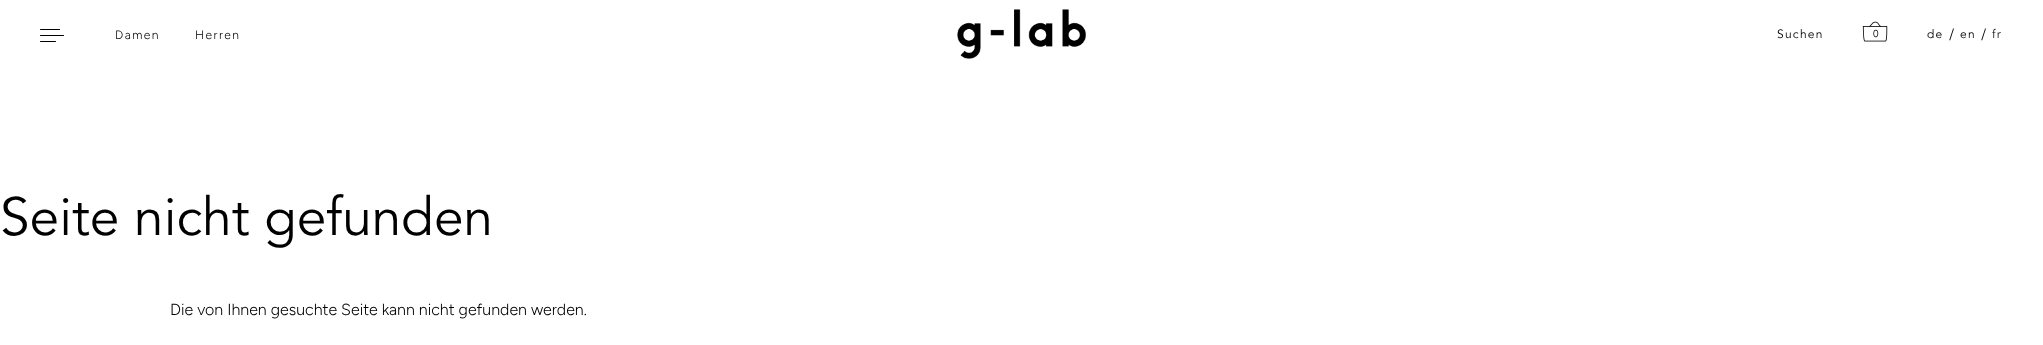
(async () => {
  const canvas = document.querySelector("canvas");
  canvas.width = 2043;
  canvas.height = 345;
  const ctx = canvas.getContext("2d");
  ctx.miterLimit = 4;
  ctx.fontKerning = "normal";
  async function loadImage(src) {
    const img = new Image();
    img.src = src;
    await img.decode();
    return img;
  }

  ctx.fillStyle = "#ffffff";
  ctx.fillRect(0, 0, 2043, 345);
  ctx.fillStyle = "#000000";
  ctx.beginPath();
  ctx.roundRect(40, 29, 20, 1, 0.5);
  ctx.fill();
  ctx.beginPath();
  ctx.roundRect(40, 35, 24, 1, 0.5);
  ctx.fill();
  ctx.beginPath();
  ctx.roundRect(40, 41, 16, 1, 0.5);
  ctx.fill();
  ctx.drawImage(await loadImage("img/1.png"), 957, 9, 130, 50);
  ctx.drawImage(await loadImage("img/2.png"), 1862, 21, 26, 21);
  ctx.letterSpacing = "1.5px";
  ctx.font = "300 12px Figtree";
  ctx.fillText("Damen", 115, 39);
  ctx.fillText("Herren", 195, 39);
  ctx.letterSpacing = "1.25px";
  ctx.font = "12px Avenir Next";
  ctx.fillText("Suchen", 1777, 38);
  ctx.letterSpacing = "0px";
  ctx.font = "10px Avenir Next";
  ctx.fillText("0", 1873, 37);
  ctx.letterSpacing = "1.25px";
  ctx.font = "12px Avenir Next";
  ctx.fillText("de", 1927, 38);
  ctx.letterSpacing = "0px";
  ctx.font = "300 14px Figtree";
  ctx.fillText("/", 1949, 39);
  ctx.letterSpacing = "1.25px";
  ctx.font = "12px Avenir Next";
  ctx.fillText("en", 1960, 38);
  ctx.letterSpacing = "0px";
  ctx.font = "300 14px Figtree";
  ctx.fillText("/", 1981, 39);
  ctx.letterSpacing = "1.25px";
  ctx.font = "12px Avenir Next";
  ctx.fillText("fr", 1992, 38);
  ctx.letterSpacing = "0px";
  ctx.font = "53.25px Avenir Next";
  ctx.fillText("Seite nicht gefunden", 0, 235);
  ctx.font = "300 16px Figtree";
  ctx.fillText("Die von Ihnen gesuchte Seite kann nicht gefunden werden.", 170, 315);
})();
